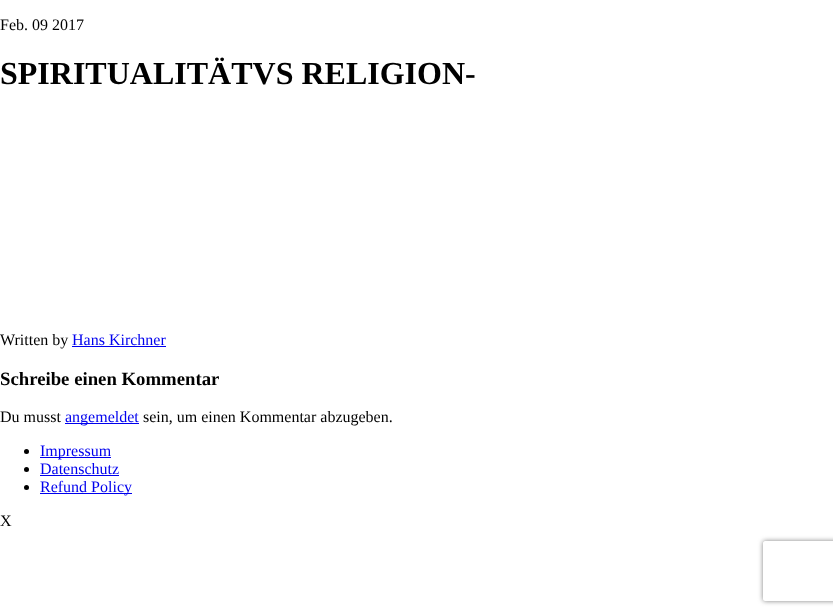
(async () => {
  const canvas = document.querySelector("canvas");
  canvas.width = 833;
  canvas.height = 615;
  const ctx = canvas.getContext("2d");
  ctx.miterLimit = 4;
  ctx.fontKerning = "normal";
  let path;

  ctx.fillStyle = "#ffffff";
  ctx.fillRect(0, 0, 833, 615);
  ctx.fillStyle = "#0000ee";
  ctx.fillRect(72, 346, 94, 1);
  ctx.fillRect(65, 423, 74, 1);
  ctx.fillStyle = "#000000";
  ctx.beginPath();
  ctx.arc(26.5, 451.5, 2.5, 0, Math.PI * 2);
  ctx.fill();
  ctx.fillStyle = "#0000ee";
  ctx.fillRect(40, 457, 71, 1);
  ctx.fillStyle = "#000000";
  ctx.beginPath();
  ctx.arc(26.5, 469.5, 2.5, 0, Math.PI * 2);
  ctx.fill();
  ctx.fillStyle = "#0000ee";
  ctx.fillRect(40, 475, 79, 1);
  ctx.fillStyle = "#000000";
  ctx.beginPath();
  ctx.arc(26.5, 487.5, 2.5, 0, Math.PI * 2);
  ctx.fill();
  ctx.fillStyle = "#0000ee";
  ctx.fillRect(40, 493, 92, 1);
  ctx.save();
  path = new Path2D("M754 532H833V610H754ZM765 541H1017C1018 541 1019 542 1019 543V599C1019 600 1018 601 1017 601H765C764 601 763 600 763 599V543C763 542 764 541 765 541Z");
  ctx.clip(path, "evenodd");
  ctx.fillStyle = "#808080";
  ctx.filter = "blur(2.5px)";
  ctx.beginPath();
  ctx.roundRect(763, 541, 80, 60, 2);
  ctx.fill();
  ctx.filter = "none";
  ctx.restore();
  ctx.font = "16px Liberation Serif";
  ctx.fillStyle = "#000000";
  ctx.fillText("Feb. 09 2017", 0, 30);
  ctx.font = "bold 32px Liberation Serif";
  ctx.fillText("SPIRITUALITÄTVS RELIGION-", 0, 84);
  ctx.font = "16px Liberation Serif";
  ctx.fillText("Written by", 0, 345);
  ctx.fillStyle = "#0000ee";
  ctx.fillText("Hans Kirchner", 72, 345);
  ctx.font = "bold 18.75px Liberation Serif";
  ctx.fillStyle = "#000000";
  ctx.fillText("Schreibe einen Kommentar", 0, 385);
  ctx.font = "16px Liberation Serif";
  ctx.fillText("Du musst", 0, 422);
  ctx.fillStyle = "#0000ee";
  ctx.fillText("angemeldet", 65, 422);
  ctx.fillStyle = "#000000";
  ctx.fillText("sein, um einen Kommentar abzugeben.", 143, 422);
  ctx.fillStyle = "#0000ee";
  for (const [text, x, y] of [
    ["Impressum", 40, 456],
    ["Datenschutz", 40, 474],
    ["Refund Policy", 40, 492],
  ]) {
    ctx.fillText(text, x, y);
  }
  ctx.fillStyle = "#000000";
  ctx.fillText("X", 0, 526);
})();
